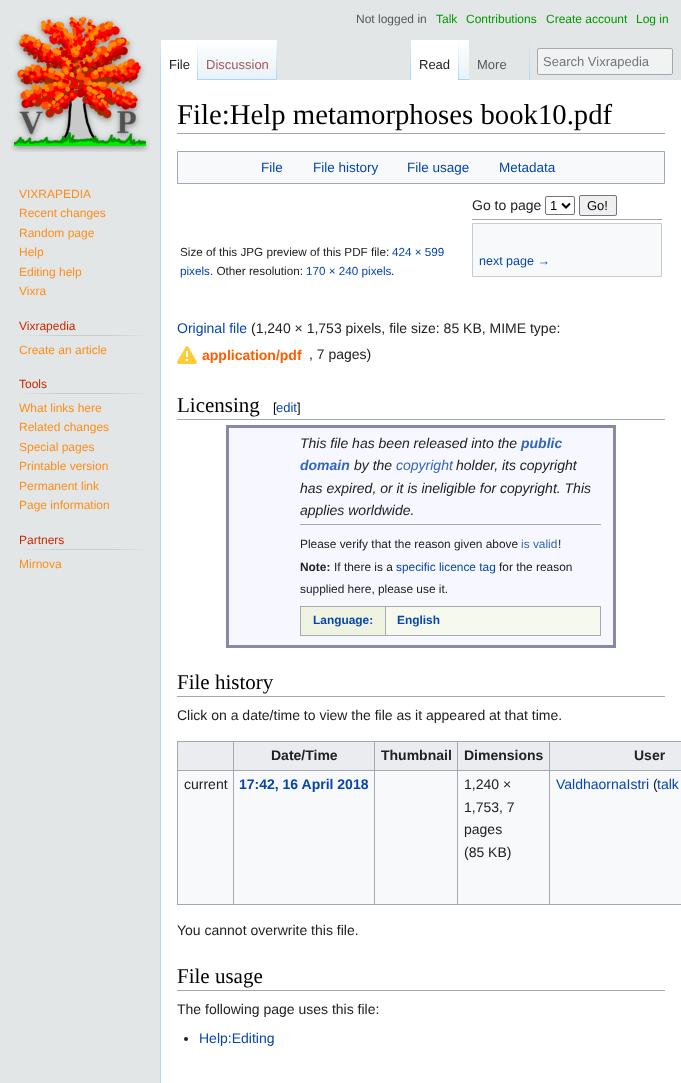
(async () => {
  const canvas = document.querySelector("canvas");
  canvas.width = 681;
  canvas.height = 1083;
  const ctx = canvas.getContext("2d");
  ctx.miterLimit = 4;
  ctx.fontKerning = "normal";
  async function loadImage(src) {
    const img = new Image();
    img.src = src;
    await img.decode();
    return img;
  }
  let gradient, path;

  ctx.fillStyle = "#e3e6e6";
  ctx.fillRect(0, 0, 681, 1083);
  ctx.fillStyle = "#a7d7f9";
  ctx.fillRect(160, 79, 1, 1004);
  ctx.fillStyle = "#e3e6e6";
  ctx.fillRect(160, 79, 1, 1);
  gradient = ctx.createLinearGradient(161, 40, 161, 80);
  gradient.addColorStop(0, "#e3e6e6");
  gradient.addColorStop(1, "#a7d7f9");
  ctx.fillStyle = gradient;
  ctx.fillRect(160, 40, 1, 40);
  ctx.fillStyle = "#ffffff";
  ctx.fillRect(161, 40, 36, 40);
  gradient = ctx.createLinearGradient(198, 40, 198, 80);
  gradient.addColorStop(0, "#ffffff");
  gradient.addColorStop(1, "#a7d7f9");
  ctx.fillStyle = gradient;
  ctx.fillRect(197, 40, 1, 40);
  gradient = ctx.createLinearGradient(238, 80, 238, 40);
  gradient.addColorStop(0, "#77c1f6");
  gradient.addColorStop(0.03, "#e8f2f8");
  gradient.addColorStop(1, "#ffffff");
  ctx.fillStyle = gradient;
  ctx.fillRect(198, 40, 79, 40);
  gradient = ctx.createLinearGradient(277, 40, 277, 80);
  gradient.addColorStop(0, "rgba(167, 215, 249, 0)");
  gradient.addColorStop(1, "#a7d7f9");
  ctx.fillStyle = gradient;
  ctx.fillRect(276, 40, 1, 40);
  gradient = ctx.createLinearGradient(411, 40, 411, 80);
  gradient.addColorStop(0, "#e3e6e6");
  gradient.addColorStop(1, "#a7d7f9");
  ctx.fillStyle = gradient;
  ctx.fillRect(410, 40, 1, 40);
  ctx.fillStyle = "#ffffff";
  ctx.fillRect(411, 40, 47, 40);
  gradient = ctx.createLinearGradient(459, 40, 459, 80);
  gradient.addColorStop(0, "#ffffff");
  gradient.addColorStop(1, "#a7d7f9");
  ctx.fillStyle = gradient;
  ctx.fillRect(458, 40, 1, 40);
  gradient = ctx.createLinearGradient(464, 80, 464, 40);
  gradient.addColorStop(0, "#77c1f6");
  gradient.addColorStop(0.03, "#e8f2f8");
  gradient.addColorStop(1, "#ffffff");
  ctx.fillStyle = gradient;
  ctx.fillRect(459, 40, 10, 40);
  gradient = ctx.createLinearGradient(530, 40, 530, 80);
  gradient.addColorStop(0, "#e3e6e6");
  gradient.addColorStop(1, "#a7d7f9");
  ctx.fillStyle = gradient;
  ctx.fillRect(529, 40, 1, 40);
  ctx.fillStyle = "#f1f3f3";
  ctx.beginPath();
  ctx.roundRect(537.5, 48.5, 135, 26, 1.5);
  ctx.fill();
  ctx.strokeStyle = "#a2a9b1";
  ctx.stroke();
  ctx.drawImage(await loadImage("img/1.png"), 10, 15, 140, 137);
  gradient = ctx.createLinearGradient(19, 336, 150, 336);
  gradient.addColorStop(0, "#e3e6e6");
  gradient.addColorStop(0.33, "#c8ccd1");
  gradient.addColorStop(0.66, "#c8ccd1");
  gradient.addColorStop(1, "#e3e6e6");
  ctx.fillStyle = gradient;
  ctx.fillRect(19, 335, 131, 1);
  gradient = ctx.createLinearGradient(19, 394, 150, 394);
  gradient.addColorStop(0, "#e3e6e6");
  gradient.addColorStop(0.33, "#c8ccd1");
  gradient.addColorStop(0.66, "#c8ccd1");
  gradient.addColorStop(1, "#e3e6e6");
  ctx.fillStyle = gradient;
  ctx.fillRect(19, 393, 131, 1);
  gradient = ctx.createLinearGradient(19, 550, 150, 550);
  gradient.addColorStop(0, "#e3e6e6");
  gradient.addColorStop(0.33, "#c8ccd1");
  gradient.addColorStop(0.66, "#c8ccd1");
  gradient.addColorStop(1, "#e3e6e6");
  ctx.fillStyle = gradient;
  ctx.fillRect(19, 549, 131, 1);
  ctx.fillStyle = "#ffffff";
  ctx.fillRect(161, 80, 520, 1003);
  ctx.fillStyle = "#a2a9b1";
  ctx.fillRect(177, 133, 488, 1);
  ctx.fillStyle = "#f8f9fa";
  ctx.beginPath();
  ctx.rect(177.5, 151.5, 487, 32);
  ctx.fill();
  ctx.stroke();
  ctx.beginPath();
  ctx.roundRect(545.5, 196.5, 29, 18, 1.5);
  ctx.strokeStyle = "#767676";
  ctx.stroke();
  path = new Path2D("M562 203.5L566 207.5L570 203.5");
  ctx.strokeStyle = "#000000";
  ctx.lineWidth = 2;
  ctx.stroke(path);
  ctx.fillStyle = "#efefef";
  ctx.beginPath();
  ctx.roundRect(579.5, 195.5, 37, 20, 1.5);
  ctx.fill();
  ctx.strokeStyle = "#767676";
  ctx.lineWidth = 1;
  ctx.stroke();
  ctx.fillStyle = "#a2a9b1";
  ctx.fillRect(472, 219, 190, 1);
  ctx.fillStyle = "#f8f9fa";
  ctx.beginPath();
  ctx.rect(472.5, 223.5, 189, 53);
  ctx.fill();
  ctx.strokeStyle = "#c8ccd1";
  ctx.stroke();
  ctx.drawImage(await loadImage("img/2.png"), 177, 346, 20, 18);
  for (const [x, y, w, h, color] of [
    [177, 419, 488, 1, "#a2a9b1"],
    [229, 428, 384, 217, "#f7f8ff"],
    [226, 425, 390, 3, "#8888aa"],
    [613, 425, 3, 223, "#8888aa"],
    [226, 645, 390, 3, "#8888aa"],
    [226, 425, 3, 223, "#8888aa"],
    [300, 524, 301, 1, "#a2a9b1"],
    [300, 606, 301, 1, "#aaaaaa"],
    [600, 606, 1, 30, "#aaaaaa"],
    [300, 635, 301, 1, "#aaaaaa"],
    [300, 606, 1, 30, "#aaaaaa"],
    [301, 607, 84, 28, "#eef3e2"],
    [385, 606, 1, 30, "#aaaaaa"],
    [386, 607, 214, 28, "#f6f9ed"],
    [177, 696, 488, 1, "#a2a9b1"],
    [178, 771, 503, 133, "#f8f9fa"],
    [177, 741, 504, 1, "#a2a9b1"],
    [177, 904, 504, 1, "#a2a9b1"],
    [177, 741, 1, 164, "#a2a9b1"],
    [178, 742, 55, 28, "#eaecf0"],
    [234, 742, 140, 28, "#eaecf0"],
    [549, 770, 132, 1, "#a2a9b1"],
    [549, 770, 1, 135, "#a2a9b1"],
    [457, 770, 93, 1, "#a2a9b1"],
    [457, 770, 1, 135, "#a2a9b1"],
    [374, 770, 84, 1, "#a2a9b1"],
    [374, 770, 1, 135, "#a2a9b1"],
    [233, 770, 142, 1, "#a2a9b1"],
    [233, 770, 1, 135, "#a2a9b1"],
    [177, 770, 57, 1, "#a2a9b1"],
    [233, 741, 1, 30, "#a2a9b1"],
    [375, 742, 82, 28, "#eaecf0"],
    [374, 741, 1, 30, "#a2a9b1"],
    [458, 742, 91, 28, "#eaecf0"],
    [457, 741, 1, 30, "#a2a9b1"],
    [550, 742, 131, 28, "#eaecf0"],
    [549, 741, 1, 30, "#a2a9b1"],
    [177, 990, 488, 1, "#a2a9b1"],
  ]) {
    ctx.fillStyle = color;
    ctx.fillRect(x, y, w, h);
  }
  ctx.fillStyle = "#202122";
  ctx.beginPath();
  ctx.arc(186, 1039, 2, 0, Math.PI * 2);
  ctx.fill();
  ctx.font = "12px Liberation Sans";
  ctx.fillStyle = "#54595d";
  ctx.fillText("Not logged in", 356, 23);
  ctx.fillStyle = "#009900";
  for (const [text, x, y] of [
    ["Talk", 436, 23],
    ["Contributions", 466, 23],
    ["Create account", 546, 23],
    ["Log in", 636, 23],
  ]) {
    ctx.fillText(text, x, y);
  }
  ctx.font = "13px Liberation Sans";
  ctx.fillStyle = "#202122";
  ctx.fillText("File", 169, 69);
  ctx.fillStyle = "#a55858";
  ctx.fillText("Discussion", 206, 69);
  ctx.fillStyle = "#202122";
  ctx.fillText("Read", 419, 69);
  ctx.fillStyle = "#54595d";
  ctx.fillText("More", 477, 69);
  ctx.fillStyle = "#72777d";
  ctx.fillText("Search Vixrapedia", 543, 66);
  ctx.font = "12px Liberation Sans";
  ctx.fillStyle = "#ff8c1a";
  for (const [text, x, y] of [
    ["VIXRAPEDIA", 19, 198],
    ["Recent changes", 19, 217],
    ["Random page", 19, 237],
    ["Help", 19, 256],
    ["Editing help", 19, 276],
    ["Vixra", 19, 295],
  ]) {
    ctx.fillText(text, x, y);
  }
  ctx.fillStyle = "#cc2900";
  ctx.fillText("Vixrapedia", 19, 330);
  ctx.fillStyle = "#ff8c1a";
  ctx.fillText("Create an article", 19, 354);
  ctx.fillStyle = "#cc2900";
  ctx.fillText("Tools", 19, 388);
  ctx.fillStyle = "#ff8c1a";
  for (const [text, x, y] of [
    ["What links here", 19, 412],
    ["Related changes", 19, 431],
    ["Special pages", 19, 451],
    ["Printable version", 19, 470],
    ["Permanent link", 19, 490],
    ["Page information", 19, 509],
  ]) {
    ctx.fillText(text, x, y);
  }
  ctx.fillStyle = "#cc2900";
  ctx.fillText("Partners", 19, 544);
  ctx.fillStyle = "#ff8c1a";
  ctx.fillText("Mirnova", 19, 568);
  ctx.font = "28.75px Liberation Serif";
  ctx.fillStyle = "#000000";
  ctx.fillText("File:Help metamorphoses book10.pdf", 177, 124);
  ctx.font = "13.5px Liberation Sans";
  ctx.fillStyle = "#0645ad";
  for (const [text, x, y] of [
    ["File", 261, 172],
    ["File history", 313, 172],
    ["File usage", 407, 172],
    ["Metadata", 499, 172],
  ]) {
    ctx.fillText(text, x, y);
  }
  ctx.font = "11.7px Liberation Sans";
  ctx.fillStyle = "#202122";
  ctx.fillText("Size of this JPG preview of this PDF file:", 180, 256);
  ctx.fillStyle = "#0645ad";
  ctx.fillText("424 × 599", 392, 256);
  ctx.fillText("pixels", 180, 275);
  ctx.fillStyle = "#202122";
  ctx.fillText(". Other resolution:", 210, 275);
  ctx.fillStyle = "#0645ad";
  ctx.fillText("170 × 240 pixels", 306, 275);
  ctx.fillStyle = "#202122";
  ctx.fillText(".", 391, 275);
  ctx.font = "14px Liberation Sans";
  ctx.fillText("Go to page", 472, 210);
  ctx.font = "13px Liberation Sans";
  ctx.fillStyle = "#000000";
  ctx.fillText("1", 550, 210);
  ctx.fillText("Go!", 587, 210);
  ctx.font = "12.5px Liberation Sans";
  ctx.fillStyle = "#0645ad";
  ctx.fillText("next page →", 479, 265);
  ctx.font = "14px Liberation Sans";
  ctx.fillText("Original file", 177, 333);
  ctx.fillStyle = "#202122";
  ctx.fillText("(1,240 × 1,753 pixels, file size: 85 KB, MIME type:", 251, 333);
  ctx.font = "bold 14px Liberation Sans";
  ctx.fillStyle = "#ff5d00";
  ctx.fillText("application/pdf", 202, 360);
  ctx.font = "14px Liberation Sans";
  ctx.fillStyle = "#202122";
  ctx.fillText(", 7 pages)", 309, 359);
  ctx.font = "21px Liberation Serif";
  ctx.fillStyle = "#000000";
  ctx.fillText("Licensing", 177, 412);
  ctx.font = "13px Liberation Sans";
  ctx.fillText("[", 273, 412);
  ctx.fillStyle = "#0645ad";
  ctx.fillText("edit", 276, 412);
  ctx.fillStyle = "#000000";
  ctx.fillText("]", 297, 412);
  ctx.font = "italic 14px Liberation Sans";
  ctx.fillStyle = "#202122";
  ctx.fillText("This file has been released into the", 300, 448);
  ctx.font = "italic bold 14px Liberation Sans";
  ctx.fillStyle = "#3366bb";
  ctx.fillText("public", 521, 448);
  ctx.fillText("domain", 300, 470);
  ctx.font = "italic 14px Liberation Sans";
  ctx.fillStyle = "#202122";
  ctx.fillText("by the", 354, 470);
  ctx.fillStyle = "#3366bb";
  ctx.fillText("copyright", 396, 470);
  ctx.fillStyle = "#202122";
  for (const [text, x, y] of [
    ["holder, its copyright", 456, 470],
    ["has expired, or it is ineligible for copyright. This", 300, 493],
    ["applies worldwide.", 300, 515],
  ]) {
    ctx.fillText(text, x, y);
  }
  ctx.font = "11.9px Liberation Sans";
  ctx.fillText("Please verify that the reason given above", 300, 548);
  ctx.fillStyle = "#3366bb";
  ctx.fillText("is valid", 521, 548);
  ctx.fillStyle = "#202122";
  ctx.fillText("!", 558, 548);
  ctx.font = "bold 11.9px Liberation Sans";
  ctx.fillText("Note:", 300, 571);
  ctx.font = "11.9px Liberation Sans";
  ctx.fillText("If there is a", 334, 571);
  ctx.fillStyle = "#0645ad";
  ctx.fillText("specific licence tag", 396, 571);
  ctx.fillStyle = "#202122";
  ctx.fillText("for the reason", 499, 571);
  ctx.fillText("supplied here, please use it.", 300, 593);
  ctx.font = "bold 11.9px Liberation Sans";
  ctx.fillStyle = "#0645ad";
  ctx.fillText("Language:", 313, 624);
  ctx.fillText("English", 397, 624);
  ctx.font = "21px Liberation Serif";
  ctx.fillStyle = "#000000";
  ctx.fillText("File history", 177, 689);
  ctx.font = "14px Liberation Sans";
  ctx.fillStyle = "#202122";
  ctx.fillText("Click on a date/time to view the file as it appeared at that time.", 177, 720);
  ctx.font = "bold 14px Liberation Sans";
  for (const [text, x, y] of [
    ["Date/Time", 271, 760],
    ["Thumbnail", 381, 760],
    ["Dimensions", 464, 760],
    ["User", 634, 760],
  ]) {
    ctx.fillText(text, x, y);
  }
  ctx.font = "14px Liberation Sans";
  ctx.fillText("current", 184, 789);
  ctx.font = "bold 14px Liberation Sans";
  ctx.fillStyle = "#0645ad";
  ctx.fillText("17:42, 16 April 2018", 239, 789);
  ctx.font = "14px Liberation Sans";
  ctx.fillStyle = "#202122";
  for (const [text, x, y] of [
    ["1,240 ×", 464, 789],
    ["1,753, 7", 464, 812],
    ["pages", 464, 834],
    ["(85 KB)", 464, 857],
  ]) {
    ctx.fillText(text, x, y);
  }
  ctx.fillStyle = "#0645ad";
  ctx.fillText("ValdhaornaIstri", 556, 789);
  ctx.fillStyle = "#202122";
  ctx.fillText("(", 653, 789);
  ctx.fillStyle = "#0645ad";
  ctx.fillText("talk", 657, 789);
  ctx.fillStyle = "#202122";
  ctx.fillText("You cannot overwrite this file.", 177, 935);
  ctx.font = "21px Liberation Serif";
  ctx.fillStyle = "#000000";
  ctx.fillText("File usage", 177, 983);
  ctx.font = "14px Liberation Sans";
  ctx.fillStyle = "#202122";
  ctx.fillText("The following page uses this file:", 177, 1014);
  ctx.fillStyle = "#0645ad";
  ctx.fillText("Help:Editing", 199, 1043);
})();
